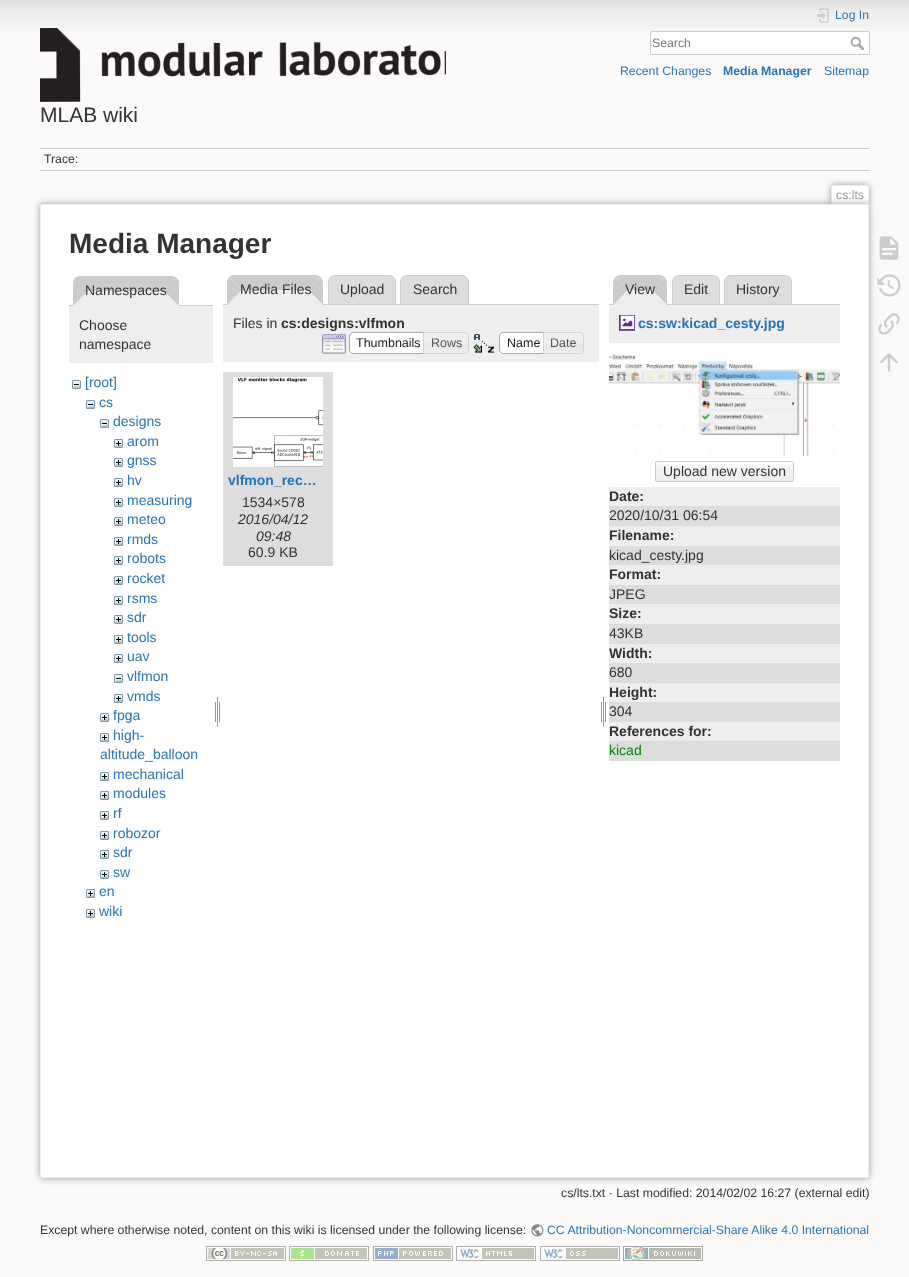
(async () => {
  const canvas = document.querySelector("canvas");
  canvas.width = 909;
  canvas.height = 1277;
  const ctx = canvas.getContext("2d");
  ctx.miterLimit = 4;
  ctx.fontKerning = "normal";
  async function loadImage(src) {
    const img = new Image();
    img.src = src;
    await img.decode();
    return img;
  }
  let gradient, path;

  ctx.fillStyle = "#fbfaf9";
  ctx.fillRect(0, 0, 909, 1277);
  ctx.drawImage(await loadImage("img/1.png"), 0, 0, 909, 31);
  ctx.drawImage(await loadImage("img/2.png"), 817, 8, 12, 15);
  ctx.fillStyle = "#ffffff";
  ctx.beginPath();
  ctx.roundRect(650.5, 31.5, 219, 23, 1.5);
  ctx.fill();
  ctx.strokeStyle = "#cccccc";
  ctx.stroke();
  ctx.drawImage(await loadImage("img/3.png"), 850, 36, 14, 14);
  ctx.drawImage(await loadImage("img/4.png"), 40, 28, 406, 74);
  for (const [x, y, w, h, color] of [
    [40, 148, 829, 1, "#cccccc"],
    [40, 171, 829, 1, "#ffffff"],
    [40, 149, 829, 1, "#ffffff"],
    [40, 170, 829, 1, "#cccccc"],
  ]) {
    ctx.fillStyle = color;
    ctx.fillRect(x, y, w, h);
  }
  ctx.save();
  ctx.beginPath();
  ctx.rect(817, 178, 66, 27);
  ctx.clip();
  ctx.fillStyle = "#999999";
  ctx.filter = "blur(3px)";
  ctx.beginPath();
  ctx.roundRect(831, 185, 38, 20, 2);
  ctx.fill();
  ctx.filter = "none";
  ctx.restore();
  ctx.fillStyle = "#ffffff";
  ctx.beginPath();
  ctx.roundRect(832, 186, 36, 19, [1, 1, 0, 0]);
  ctx.fill();
  for (const [x, y, w, h, color] of [
    [832, 185, 36, 1, "#eeeeee"],
    [868, 186, 1, 19, "#eeeeee"],
    [831, 186, 1, 19, "#eeeeee"],
  ]) {
    ctx.fillStyle = color;
    ctx.fillRect(x, y, w, h);
  }
  ctx.fillStyle = "#999999";
  ctx.filter = "blur(3.5px)";
  ctx.beginPath();
  ctx.roundRect(40, 204, 829, 974, 2);
  ctx.fill();
  ctx.filter = "none";
  ctx.fillStyle = "#ffffff";
  ctx.beginPath();
  ctx.roundRect(40.5, 204.5, 828, 973, 1.5);
  ctx.fill();
  ctx.strokeStyle = "#eeeeee";
  ctx.stroke();
  ctx.fillStyle = "#cccccc";
  ctx.fillRect(69, 305, 144, 1);
  ctx.fillStyle = "#eeeeee";
  ctx.beginPath();
  ctx.roundRect(73, 276, 106, 30, [7, 7, 0, 0]);
  ctx.fill();
  ctx.fillStyle = "#cccccc";
  path = new Path2D("M80 276H173L177 278L164 291H88L75 278C76 277 78 276 80 276Z");
  ctx.fill(path);
  path = new Path2D("M177 278L164 291L179 306V283C179 281 178 279 177 278Z");
  ctx.fill(path);
  ctx.fillStyle = "#eeeeee";
  path = new Path2D("M179 306L164 291H88L73 306Z");
  ctx.fill(path);
  ctx.fillStyle = "#cccccc";
  path = new Path2D("M73 306V283C73 281 74 279 75 278L88 291Z");
  ctx.fill(path);
  ctx.fillStyle = "#eeeeee";
  ctx.fillRect(69, 306, 144, 57);
  ctx.drawImage(await loadImage("img/5.png"), 72, 380, 9, 9);
  ctx.drawImage(await loadImage("img/5.png"), 86, 400, 9, 9);
  ctx.drawImage(await loadImage("img/5.png"), 100, 419, 9, 9);
  ctx.drawImage(await loadImage("img/6.png"), 114, 439, 9, 9);
  ctx.drawImage(await loadImage("img/6.png"), 114, 458, 9, 9);
  ctx.drawImage(await loadImage("img/6.png"), 114, 478, 9, 9);
  ctx.drawImage(await loadImage("img/6.png"), 114, 498, 9, 9);
  ctx.drawImage(await loadImage("img/6.png"), 114, 517, 9, 9);
  ctx.drawImage(await loadImage("img/6.png"), 114, 537, 9, 9);
  ctx.drawImage(await loadImage("img/6.png"), 114, 556, 9, 9);
  ctx.drawImage(await loadImage("img/6.png"), 114, 576, 9, 9);
  ctx.drawImage(await loadImage("img/6.png"), 114, 596, 9, 9);
  ctx.drawImage(await loadImage("img/6.png"), 114, 615, 9, 9);
  ctx.drawImage(await loadImage("img/6.png"), 114, 635, 9, 9);
  ctx.drawImage(await loadImage("img/6.png"), 114, 654, 9, 9);
  ctx.drawImage(await loadImage("img/5.png"), 114, 674, 9, 9);
  ctx.drawImage(await loadImage("img/6.png"), 114, 694, 9, 9);
  ctx.drawImage(await loadImage("img/6.png"), 100, 713, 9, 9);
  ctx.drawImage(await loadImage("img/6.png"), 100, 733, 9, 9);
  ctx.drawImage(await loadImage("img/6.png"), 100, 772, 9, 9);
  ctx.drawImage(await loadImage("img/6.png"), 100, 791, 9, 9);
  ctx.drawImage(await loadImage("img/6.png"), 100, 811, 9, 9);
  ctx.drawImage(await loadImage("img/6.png"), 100, 831, 9, 9);
  ctx.drawImage(await loadImage("img/6.png"), 100, 850, 9, 9);
  ctx.drawImage(await loadImage("img/6.png"), 100, 870, 9, 9);
  ctx.drawImage(await loadImage("img/6.png"), 86, 889, 9, 9);
  ctx.drawImage(await loadImage("img/6.png"), 86, 909, 9, 9);
  ctx.drawImage(await loadImage("img/7.png"), 215, 696, 5, 31);
  ctx.fillStyle = "#cccccc";
  path = new Path2D("M234 275H316C318 275 320 276 321 277L308 290H242L229 277C230 276 232 275 234 275Z");
  ctx.fill(path);
  ctx.fillStyle = "#dddddd";
  ctx.beginPath();
  ctx.roundRect(328.5, 275.5, 67, 29, [6.5, 6.5, 0, 0]);
  ctx.fill();
  ctx.strokeStyle = "#cccccc";
  ctx.stroke();
  ctx.beginPath();
  ctx.roundRect(400.5, 275.5, 68, 29, [6.5, 6.5, 0, 0]);
  ctx.fill();
  ctx.stroke();
  ctx.fillStyle = "#cccccc";
  ctx.fillRect(223, 304, 376, 1);
  path = new Path2D("M321 277L308 290L323 305V282C323 280 322 278 321 277Z");
  ctx.fill(path);
  ctx.fillStyle = "#eeeeee";
  path = new Path2D("M323 305L308 290H242L227 305Z");
  ctx.fill(path);
  ctx.fillStyle = "#cccccc";
  path = new Path2D("M227 305V282C227 280 228 278 229 277L242 290Z");
  ctx.fill(path);
  ctx.fillStyle = "#eeeeee";
  ctx.fillRect(223, 305, 376, 57);
  ctx.drawImage(await loadImage("img/8.png"), 322, 334, 24, 20);
  ctx.fillStyle = "#ffffff";
  ctx.fillRect(349, 332, 74, 22);
  ctx.beginPath();
  ctx.roundRect(349.5, 332.5, 78, 21, [3.5, 0, 0, 3.5]);
  ctx.strokeStyle = "#aaaaaa";
  ctx.stroke();
  ctx.drawImage(await loadImage("img/9.png"), 424, 332, 45, 22);
  ctx.beginPath();
  ctx.roundRect(423.5, 332.5, 45, 21, [0, 3.5, 3.5, 0]);
  ctx.strokeStyle = "#d3d3d3";
  ctx.stroke();
  ctx.drawImage(await loadImage("img/10.png"), 473, 334, 21, 19);
  ctx.fillRect(499, 332, 44, 22);
  ctx.beginPath();
  ctx.roundRect(499.5, 332.5, 48, 21, [3.5, 0, 0, 3.5]);
  ctx.strokeStyle = "#aaaaaa";
  ctx.stroke();
  ctx.drawImage(await loadImage("img/11.png"), 544, 332, 40, 22);
  ctx.beginPath();
  ctx.roundRect(543.5, 332.5, 40, 21, [0, 3.5, 3.5, 0]);
  ctx.strokeStyle = "#d3d3d3";
  ctx.stroke();
  ctx.fillStyle = "#dddddd";
  ctx.fillRect(223, 372, 110, 194);
  ctx.drawImage(await loadImage("img/12.png"), 233, 377, 90, 90);
  ctx.drawImage(await loadImage("img/7.png"), 601, 696, 5, 31);
  ctx.fillStyle = "#cccccc";
  path = new Path2D("M620 275H660C662 275 664 276 665 277L652 290H628L615 277C616 276 618 275 620 275Z");
  ctx.fill(path);
  ctx.fillStyle = "#dddddd";
  ctx.beginPath();
  ctx.roundRect(672.5, 275.5, 47, 29, [6.5, 6.5, 0, 0]);
  ctx.fill();
  ctx.strokeStyle = "#cccccc";
  ctx.stroke();
  ctx.beginPath();
  ctx.roundRect(724.5, 275.5, 67, 29, [6.5, 6.5, 0, 0]);
  ctx.fill();
  ctx.stroke();
  ctx.fillStyle = "#cccccc";
  ctx.fillRect(609, 304, 231, 1);
  path = new Path2D("M665 277L652 290L667 305V282C667 280 666 278 665 277Z");
  ctx.fill(path);
  ctx.fillStyle = "#eeeeee";
  path = new Path2D("M667 305L652 290H628L613 305Z");
  ctx.fill(path);
  ctx.fillStyle = "#cccccc";
  path = new Path2D("M613 305V282C613 280 614 278 615 277L628 290Z");
  ctx.fill(path);
  ctx.fillStyle = "#eeeeee";
  ctx.fillRect(609, 305, 231, 38);
  ctx.drawImage(await loadImage("img/13.png"), 619, 315, 16, 16);
  ctx.drawImage(await loadImage("img/14.png"), 609, 353, 231, 103);
  ctx.save();
  ctx.beginPath();
  ctx.roundRect(655, 461, 139, 21, 2);
  ctx.clip();
  gradient = ctx.createLinearGradient(725, 462, 725, 481);
  gradient.addColorStop(0, "#ffffff");
  gradient.addColorStop(0.3, "#f4f4f4");
  gradient.addColorStop(0.99, "#eeeeee");
  gradient.addColorStop(0.99, "#cccccc");
  ctx.fillStyle = gradient;
  ctx.fillRect(655, 462, 139, 19);
  ctx.restore();
  ctx.beginPath();
  ctx.roundRect(655.5, 461.5, 138, 20, 1.5);
  ctx.stroke();
  for (const [x, y, w, h, color] of [
    [609, 487, 231, 19, "#eeeeee"],
    [609, 506, 231, 20, "#dddddd"],
    [609, 526, 231, 20, "#eeeeee"],
    [609, 546, 231, 19, "#dddddd"],
    [609, 565, 231, 20, "#eeeeee"],
    [609, 585, 231, 19, "#dddddd"],
    [609, 604, 231, 20, "#eeeeee"],
    [609, 624, 231, 20, "#dddddd"],
    [609, 644, 231, 19, "#eeeeee"],
    [609, 663, 231, 20, "#dddddd"],
    [609, 683, 231, 19, "#eeeeee"],
    [609, 702, 231, 20, "#dddddd"],
    [609, 722, 231, 19, "#eeeeee"],
    [609, 741, 231, 20, "#dddddd"],
  ]) {
    ctx.fillStyle = color;
    ctx.fillRect(x, y, w, h);
  }
  ctx.drawImage(await loadImage("img/15.png"), 879, 236, 20, 24);
  ctx.drawImage(await loadImage("img/16.png"), 877, 274, 24, 23);
  ctx.drawImage(await loadImage("img/17.png"), 878, 313, 22, 22);
  ctx.drawImage(await loadImage("img/18.png"), 880, 353, 18, 19);
  ctx.drawImage(await loadImage("img/19.png"), 531, 1224, 13, 13);
  ctx.drawImage(await loadImage("img/20.png"), 206, 1246, 80, 15);
  ctx.drawImage(await loadImage("img/21.png"), 289, 1246, 80, 15);
  ctx.drawImage(await loadImage("img/22.png"), 373, 1246, 80, 15);
  ctx.drawImage(await loadImage("img/23.png"), 456, 1246, 80, 15);
  ctx.drawImage(await loadImage("img/24.png"), 540, 1246, 80, 15);
  ctx.drawImage(await loadImage("img/25.png"), 623, 1246, 80, 15);
  ctx.font = "12.25px Liberation Sans";
  ctx.fillStyle = "#2b73b7";
  ctx.fillText("Log In", 835, 19);
  ctx.fillStyle = "#757575";
  ctx.fillText("Search", 652, 47);
  ctx.fillStyle = "#2b73b7";
  ctx.fillText("Recent Changes", 620, 75);
  ctx.font = "bold 12.25px Liberation Sans";
  ctx.fillText("Media Manager", 723, 75);
  ctx.font = "12.25px Liberation Sans";
  ctx.fillText("Sitemap", 824, 75);
  ctx.font = "21px Liberation Sans";
  ctx.fillStyle = "#333333";
  ctx.fillText("MLAB wiki", 40, 122);
  ctx.font = "12.25px Liberation Sans";
  ctx.fillText("Trace:", 44, 163);
  ctx.fillStyle = "#999999";
  ctx.fillText("cs:lts", 836, 199);
  ctx.font = "bold 28px Liberation Sans";
  ctx.fillStyle = "#333333";
  ctx.fillText("Media Manager", 69, 253);
  ctx.font = "14px Liberation Sans";
  for (const [text, x, y] of [
    ["Namespaces", 85, 295],
    ["Choose", 79, 330],
    ["namespace", 79, 349],
  ]) {
    ctx.fillText(text, x, y);
  }
  ctx.fillStyle = "#2b73b7";
  for (const [text, x, y] of [
    ["[root]", 85, 387],
    ["cs", 99, 407],
    ["designs", 113, 426],
    ["arom", 127, 446],
    ["gnss", 127, 465],
    ["hv", 127, 485],
    ["measuring", 127, 505],
    ["meteo", 127, 524],
    ["rmds", 127, 544],
    ["robots", 127, 563],
    ["rocket", 127, 583],
    ["rsms", 127, 603],
    ["sdr", 127, 622],
    ["tools", 127, 642],
    ["uav", 127, 661],
    ["vlfmon", 127, 681],
    ["vmds", 127, 701],
    ["fpga", 113, 720],
    ["high-", 113, 740],
    ["altitude_balloon", 100, 759],
    ["mechanical", 113, 779],
    ["modules", 113, 798],
    ["rf", 113, 818],
    ["robozor", 113, 838],
    ["sdr", 113, 857],
    ["sw", 113, 877],
    ["en", 99, 896],
    ["wiki", 99, 916],
  ]) {
    ctx.fillText(text, x, y);
  }
  ctx.fillStyle = "#333333";
  for (const [text, x, y] of [
    ["Media Files", 240, 294],
    ["Upload", 340, 294],
    ["Search", 413, 294],
    ["Files in", 233, 328],
  ]) {
    ctx.fillText(text, x, y);
  }
  ctx.font = "bold 14px Liberation Sans";
  ctx.fillText("cs:designs:vlfmon", 281, 328);
  ctx.font = "12.5px Liberation Sans";
  ctx.fillStyle = "#212121";
  ctx.fillText("Thumbnails", 356, 347);
  ctx.fillStyle = "#555555";
  ctx.fillText("Rows", 431, 347);
  ctx.fillStyle = "#212121";
  ctx.fillText("Name", 507, 347);
  ctx.fillStyle = "#555555";
  ctx.fillText("Date", 550, 347);
  ctx.font = "bold 14px Liberation Sans";
  ctx.fillStyle = "#2b73b7";
  ctx.fillText("vlfmon_rec…", 228, 485);
  ctx.font = "14px Liberation Sans";
  ctx.fillStyle = "#333333";
  ctx.fillText("1534×578", 242, 507);
  ctx.font = "italic 14px Liberation Sans";
  ctx.fillText("2016/04/12", 238, 524);
  ctx.fillText("09:48", 256, 541);
  ctx.font = "14px Liberation Sans";
  for (const [text, x, y] of [
    ["60.9 KB", 248, 557],
    ["View", 625, 294],
    ["Edit", 684, 294],
    ["History", 736, 294],
  ]) {
    ctx.fillText(text, x, y);
  }
  ctx.font = "bold 14px Liberation Sans";
  ctx.fillStyle = "#2b73b7";
  ctx.fillText("cs:sw:kicad_cesty.jpg", 638, 328);
  ctx.font = "14px Liberation Sans";
  ctx.fillStyle = "#333333";
  ctx.fillText("Upload new version", 663, 476);
  ctx.font = "bold 14px Liberation Sans";
  ctx.fillText("Date:", 609, 501);
  ctx.font = "14px Liberation Sans";
  ctx.fillText("2020/10/31 06:54", 609, 520);
  ctx.font = "bold 14px Liberation Sans";
  ctx.fillText("Filename:", 609, 540);
  ctx.font = "14px Liberation Sans";
  ctx.fillText("kicad_cesty.jpg", 609, 560);
  ctx.font = "bold 14px Liberation Sans";
  ctx.fillText("Format:", 609, 579);
  ctx.font = "14px Liberation Sans";
  ctx.fillText("JPEG", 609, 599);
  ctx.font = "bold 14px Liberation Sans";
  ctx.fillText("Size:", 609, 618);
  ctx.font = "14px Liberation Sans";
  ctx.fillText("43KB", 609, 638);
  ctx.font = "bold 14px Liberation Sans";
  ctx.fillText("Width:", 609, 658);
  ctx.font = "14px Liberation Sans";
  ctx.fillText("680", 609, 677);
  ctx.font = "bold 14px Liberation Sans";
  ctx.fillText("Height:", 609, 697);
  ctx.font = "14px Liberation Sans";
  ctx.fillText("304", 609, 716);
  ctx.font = "bold 14px Liberation Sans";
  ctx.fillText("References for:", 609, 736);
  ctx.font = "14px Liberation Sans";
  ctx.fillStyle = "#008800";
  ctx.fillText("kicad", 609, 755);
  ctx.font = "12.25px Liberation Sans";
  ctx.fillStyle = "#333333";
  ctx.fillText("cs/lts.txt · Last modified: 2014/02/02 16:27 (external edit)", 561, 1197);
  ctx.fillText("Except where otherwise noted, content on this wiki is licensed under the following license:", 40, 1234);
  ctx.fillStyle = "#2b73b7";
  ctx.fillText("CC Attribution-Noncommercial-Share Alike 4.0 International", 547, 1234);
})();
